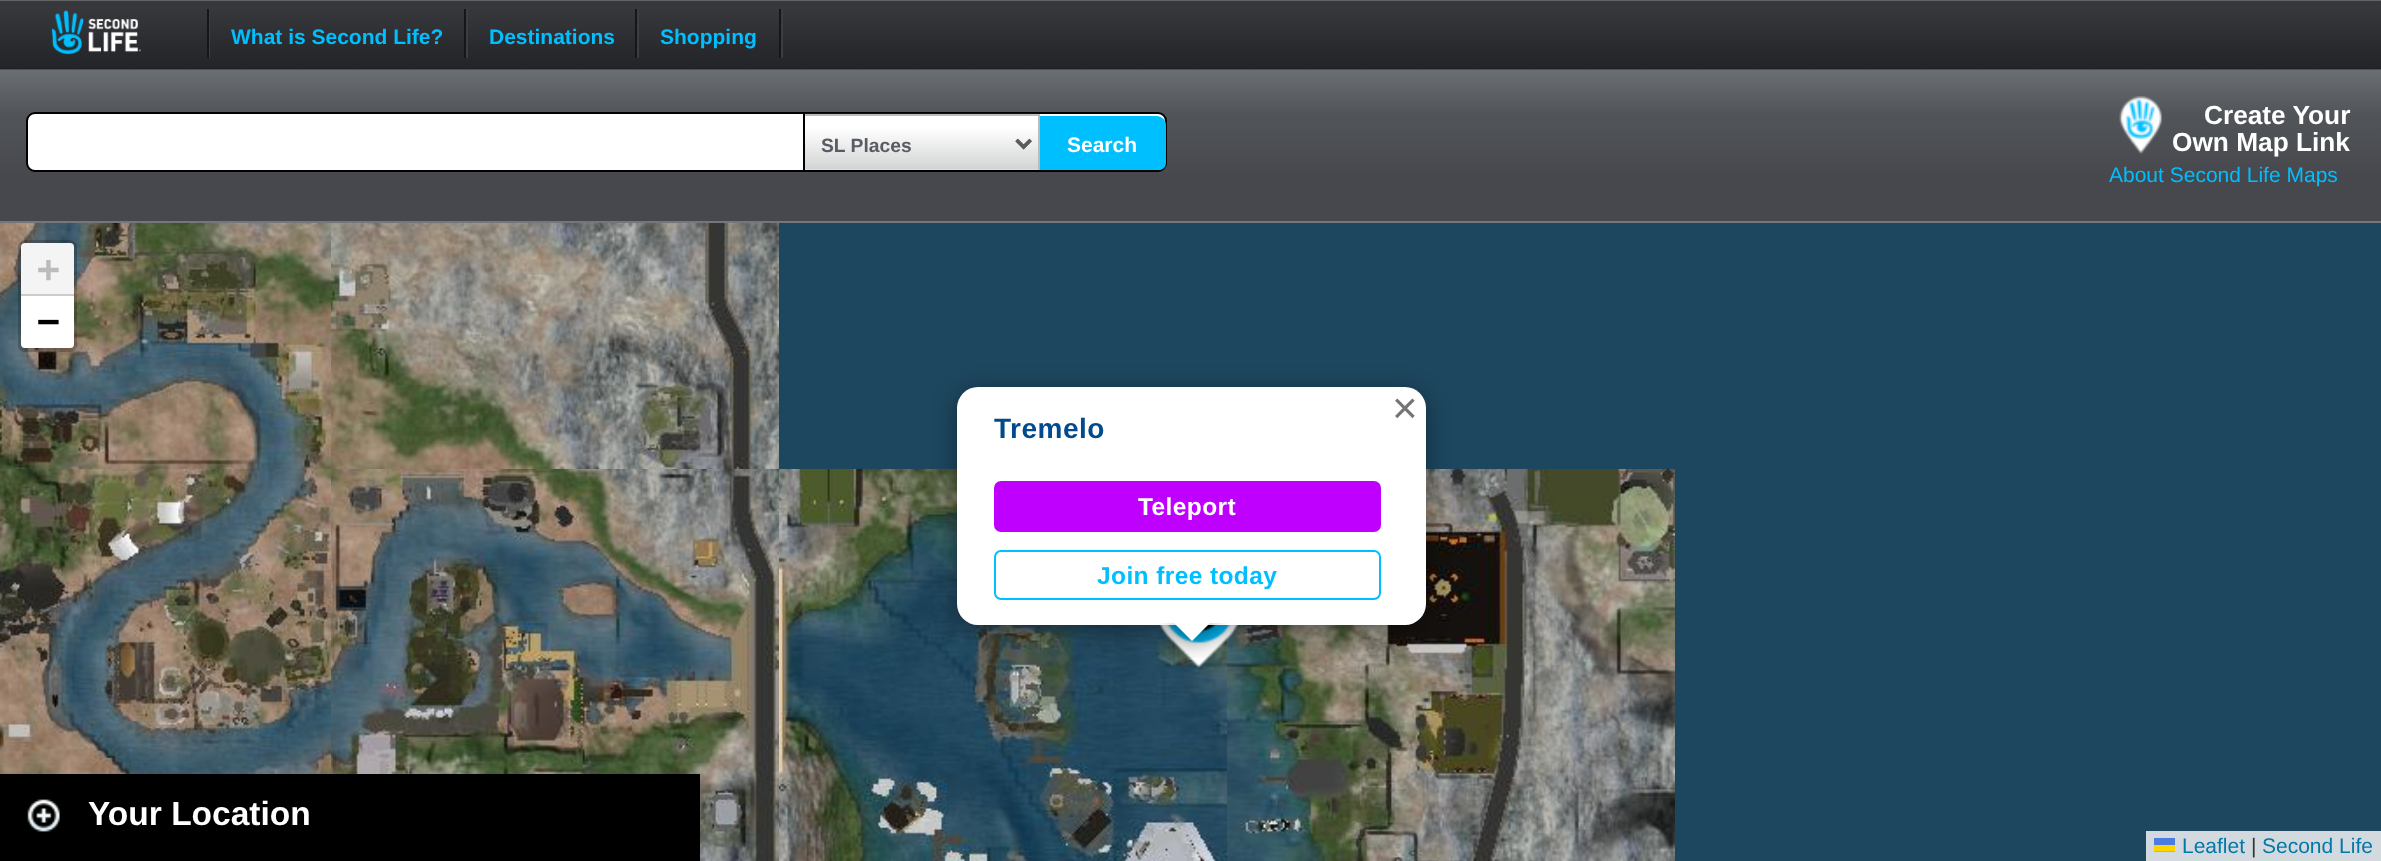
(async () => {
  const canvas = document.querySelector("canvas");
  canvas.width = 2381;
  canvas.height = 861;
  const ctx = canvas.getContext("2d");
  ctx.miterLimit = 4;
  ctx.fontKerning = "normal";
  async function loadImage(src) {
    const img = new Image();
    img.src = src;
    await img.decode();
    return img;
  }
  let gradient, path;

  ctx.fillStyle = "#ffffff";
  ctx.fillRect(0, 0, 2381, 861);
  ctx.drawImage(await loadImage("img/1.png"), 0, 0, 2381, 70);
  ctx.drawImage(await loadImage("img/2.png"), 51, 10, 90, 45);
  for (const [x, y, w, h, color] of [
    [209, 9, 1, 49, "#3a3e42"],
    [207, 9, 2, 49, "#161616"],
    [466, 9, 2, 49, "#3a3e42"],
    [464, 9, 2, 49, "#161616"],
    [637, 9, 2, 49, "#3a3e42"],
    [635, 9, 2, 49, "#161616"],
    [781, 9, 2, 49, "#3a3e42"],
    [779, 9, 2, 49, "#161616"],
  ]) {
    ctx.fillStyle = color;
    ctx.fillRect(x, y, w, h);
  }
  gradient = ctx.createLinearGradient(0, 221, 0, 70);
  gradient.addColorStop(0.29, "#47484d");
  gradient.addColorStop(0.71, "#515559");
  gradient.addColorStop(1, "#6b6e73");
  ctx.fillStyle = gradient;
  ctx.fillRect(0, 70, 2381, 151);
  ctx.fillStyle = "#72777e";
  ctx.fillRect(0, 221, 2381, 2);
  ctx.fillStyle = "#ffffff";
  ctx.beginPath();
  ctx.roundRect(27, 113, 1139, 58, 8);
  ctx.fill();
  ctx.strokeStyle = "#000000";
  ctx.lineWidth = 2;
  ctx.stroke();
  ctx.drawImage(await loadImage("img/3.png"), 803, 113, 237, 57);
  for (const [x, y, w, h, color] of [
    [803, 114, 237, 2, "#bbbbbb"],
    [1038, 114, 2, 56, "#bbbbbb"],
    [803, 114, 2, 56, "#000000"],
  ]) {
    ctx.fillStyle = color;
    ctx.fillRect(x, y, w, h);
  }
  path = new Path2D("M1016.5 140L1023.5 147L1030.5 140");
  ctx.strokeStyle = "#595c62";
  ctx.lineWidth = 3.5;
  ctx.stroke(path);
  ctx.save();
  ctx.beginPath();
  ctx.roundRect(28, 114, 1138, 56, 7);
  ctx.clip();
  ctx.fillStyle = "#00bfff";
  ctx.beginPath();
  ctx.roundRect(1040, 116, 126, 59, [0, 9, 9, 0]);
  ctx.fill();
  ctx.restore();
  ctx.drawImage(await loadImage("img/4.png"), 2119, 96, 44, 58);
  ctx.fillStyle = "#1d475f";
  ctx.fillRect(779, 223, 1602, 638);
  ctx.drawImage(await loadImage("img/5.png"), 0, 223, 331, 246);
  ctx.beginPath();
  ctx.roundRect(20, 242, 55, 108, 5);
  ctx.strokeStyle = "rgba(0, 0, 0, 0.2)";
  ctx.lineWidth = 4;
  ctx.stroke();
  ctx.fillStyle = "#f4f4f4";
  ctx.beginPath();
  ctx.roundRect(21, 243, 53, 53, [4, 4, 0, 0]);
  ctx.fill();
  ctx.fillStyle = "#cccccc";
  ctx.fillRect(21, 294, 53, 2);
  ctx.fillStyle = "#ffffff";
  ctx.beginPath();
  ctx.roundRect(21, 296, 53, 52, [0, 0, 4, 4]);
  ctx.fill();
  for (const [x, y, w, h, color] of [
    [2146, 831, 235, 30, "#d2dadf"],
    [2154, 838, 21, 7, "#4c7be1"],
    [2154, 845, 21, 6, "#ffd500"],
    [2154, 851, 21, 1, "#e0bc00"],
  ]) {
    ctx.fillStyle = color;
    ctx.fillRect(x, y, w, h);
  }
  ctx.drawImage(await loadImage("img/6.png"), 331, 223, 448, 246);
  ctx.drawImage(await loadImage("img/7.png"), 0, 469, 331, 305);
  ctx.drawImage(await loadImage("img/8.png"), 331, 469, 448, 392);
  ctx.drawImage(await loadImage("img/9.png"), 779, 469, 448, 392);
  ctx.drawImage(await loadImage("img/10.png"), 1227, 469, 448, 392);
  ctx.drawImage(await loadImage("img/11.png"), 1159, 625, 80, 43);
  ctx.fillStyle = "rgba(0, 0, 0, 0.4)";
  ctx.filter = "blur(12px)";
  ctx.beginPath();
  ctx.roundRect(957, 392, 469, 238, 21);
  ctx.fill();
  ctx.filter = "none";
  ctx.fillStyle = "#ffffff";
  ctx.beginPath();
  ctx.roundRect(957, 387, 469, 238, 21);
  ctx.fill();
  ctx.fillStyle = "#bf00ff";
  ctx.beginPath();
  ctx.roundRect(994, 481, 387, 51, 7);
  ctx.fill();
  ctx.beginPath();
  ctx.roundRect(995, 551, 385, 48, 6);
  ctx.strokeStyle = "#00bfff";
  ctx.lineWidth = 2;
  ctx.stroke();
  ctx.save();
  ctx.beginPath();
  ctx.rect(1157, 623, 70, 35);
  ctx.clip();
  ctx.fillStyle = "rgba(0, 0, 0, 0.4)";
  ctx.filter = "blur(12.5px)";
  ctx.beginPath();
  ctx.rect(1178, 611, 30, 30);
  ctx.fill();
  ctx.filter = "none";
  ctx.restore();
  ctx.save();
  ctx.beginPath();
  ctx.rect(1157, 623, 70, 35);
  ctx.clip();
  ctx.fillStyle = "#ffffff";
  path = new Path2D("M1192 599L1213 620L1192 641L1171 620Z");
  ctx.fill(path);
  ctx.restore();
  ctx.fillStyle = "#000000";
  ctx.fillRect(0, 774, 700, 87);
  ctx.drawImage(await loadImage("img/12.png"), 27, 799, 33, 33);
  ctx.font = "bold 21px Liberation Sans";
  ctx.fillStyle = "#00bfff";
  for (const [text, x, y] of [
    ["What is Second Life?", 231, 44],
    ["Destinations", 489, 44],
    ["Shopping", 660, 44],
  ]) {
    ctx.fillText(text, x, y);
  }
  ctx.font = "bold 19.25px Liberation Sans";
  ctx.fillStyle = "#595c62";
  ctx.fillText("SL Places", 821, 152);
  ctx.font = "bold 21px Liberation Sans";
  ctx.fillStyle = "#ffffff";
  ctx.fillText("Search", 1067, 152);
  ctx.font = "bold 26.25px Liberation Sans";
  ctx.fillText("Create Your", 2204, 124);
  ctx.fillText("Own Map Link", 2172, 151);
  ctx.font = "21px Liberation Sans";
  ctx.fillStyle = "#00bfff";
  ctx.fillText("About Second Life Maps", 2109, 182);
  ctx.font = "bold 38px DejaVu Sans Mono";
  ctx.fillStyle = "#bbbbbb";
  ctx.fillText("+", 37, 282);
  ctx.fillStyle = "#000000";
  ctx.fillText("−", 37, 334);
  ctx.font = "21px Liberation Sans";
  ctx.fillStyle = "#0078a8";
  ctx.fillText("Leaflet", 2182, 853);
  ctx.fillStyle = "#333333";
  ctx.fillText("|", 2251, 853);
  ctx.fillStyle = "#0078a8";
  ctx.fillText("Second Life", 2262, 853);
  ctx.font = "44px Liberation Sans";
  ctx.fillStyle = "#757575";
  ctx.fillText("×", 1392, 423);
  ctx.letterSpacing = "0.5px";
  ctx.font = "bold 28px Liberation Sans";
  ctx.fillStyle = "#014a8e";
  ctx.fillText("Tremelo", 994, 438);
  ctx.letterSpacing = "0.4px";
  ctx.font = "bold 24.5px Liberation Sans";
  ctx.fillStyle = "#ffffff";
  ctx.fillText("Teleport", 1138, 515);
  ctx.fillStyle = "#00bfff";
  ctx.fillText("Join free today", 1097, 584);
  ctx.letterSpacing = "0px";
  ctx.font = "bold 33.5px Liberation Sans";
  ctx.fillStyle = "#ffffff";
  ctx.fillText("Your Location", 88, 825);
})();
